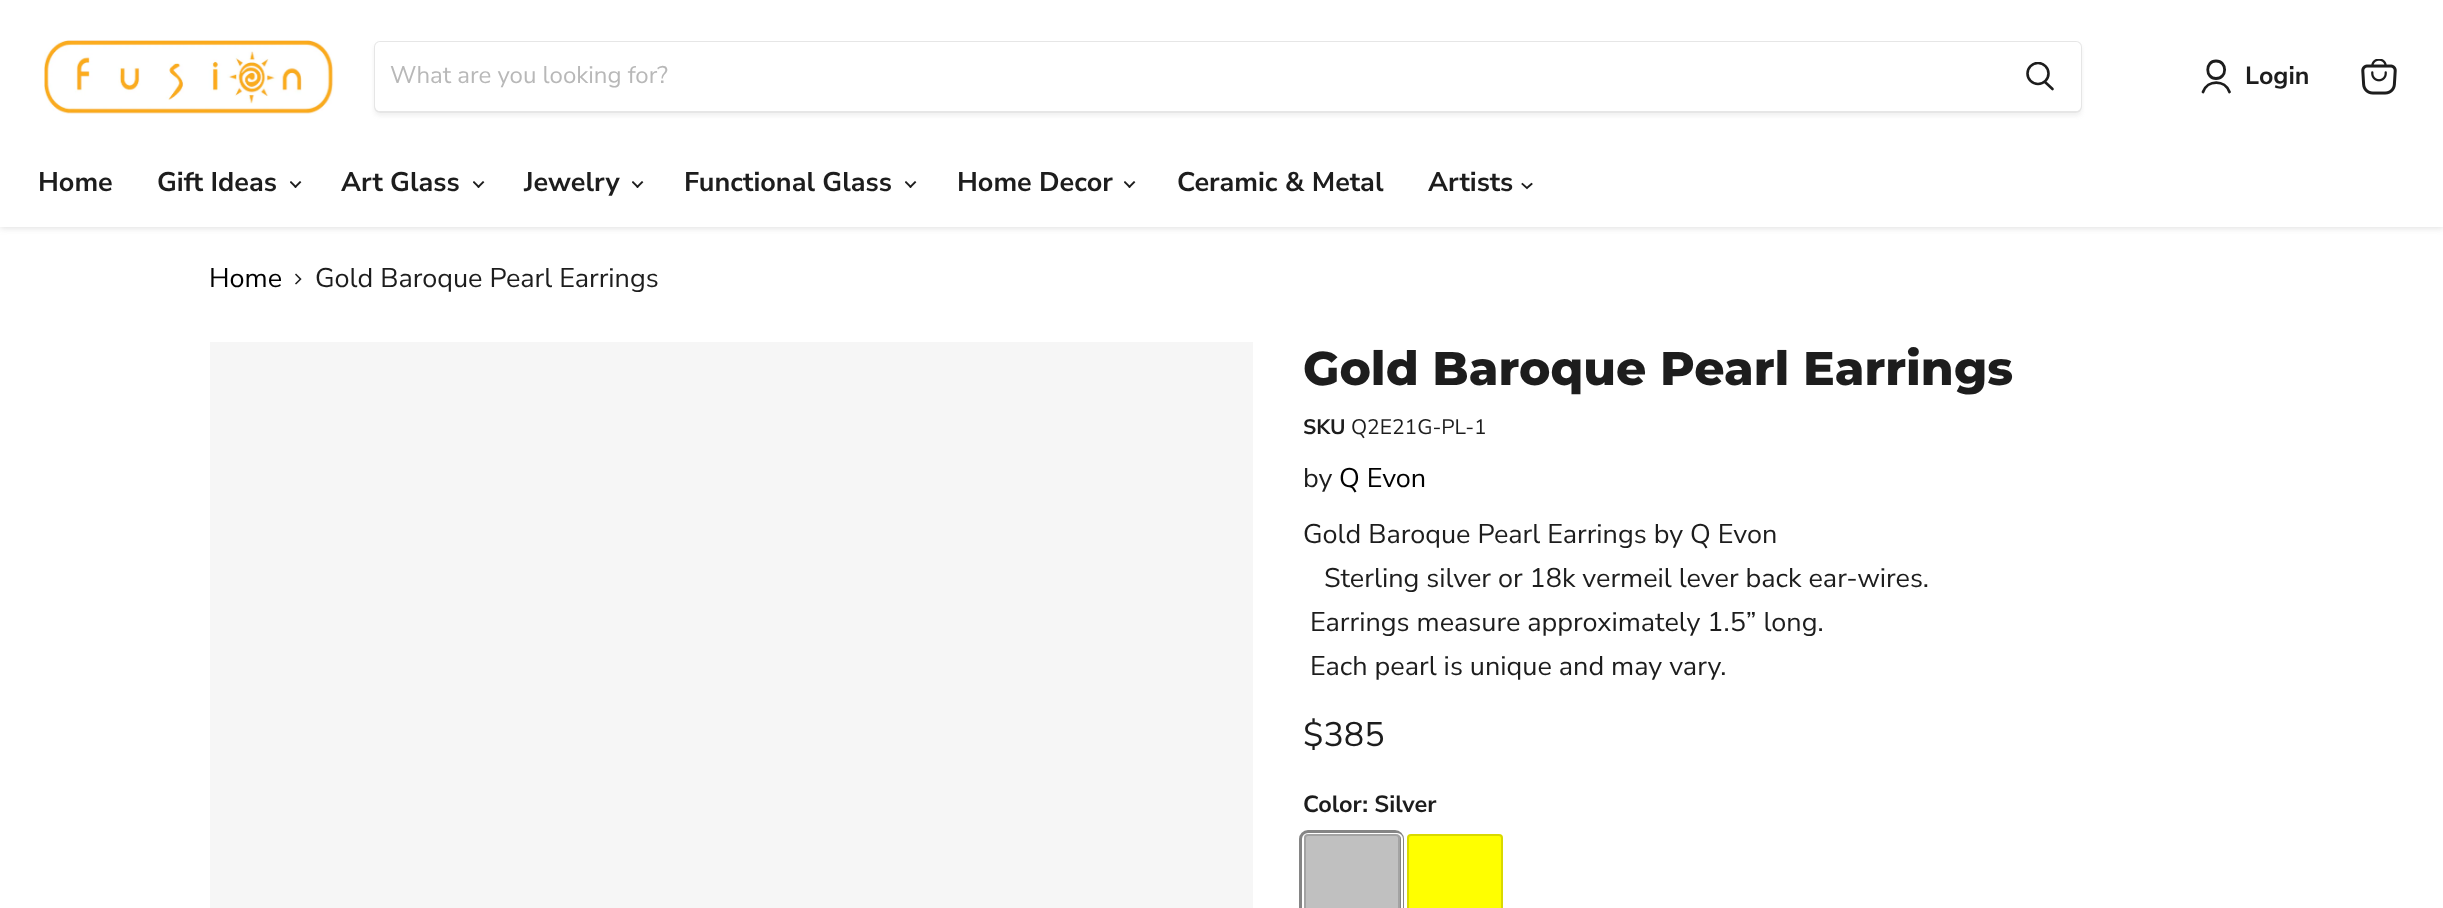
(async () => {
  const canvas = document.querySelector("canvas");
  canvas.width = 2443;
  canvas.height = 908;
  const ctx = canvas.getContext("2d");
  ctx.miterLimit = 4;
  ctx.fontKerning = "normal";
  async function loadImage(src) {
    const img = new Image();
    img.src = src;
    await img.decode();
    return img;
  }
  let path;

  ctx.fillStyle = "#ffffff";
  ctx.fillRect(0, 0, 2443, 908);
  ctx.fillStyle = "rgba(128, 128, 128, 0.25)";
  ctx.filter = "blur(3px)";
  ctx.beginPath();
  ctx.rect(0, 2, 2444, 226);
  ctx.fill();
  ctx.filter = "none";
  ctx.fillStyle = "#ffffff";
  ctx.fillRect(0, 0, 2443, 227);
  ctx.drawImage(await loadImage("img/1.png"), 44, 40, 290, 74);
  ctx.save();
  path = new Path2D("M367 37H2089V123H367ZM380 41H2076C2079.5 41 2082 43.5 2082 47V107C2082 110.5 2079.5 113 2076 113H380C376.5 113 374 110.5 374 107V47C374 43.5 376.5 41 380 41Z");
  ctx.clip(path, "evenodd");
  ctx.fillStyle = "rgba(128, 128, 128, 0.11)";
  ctx.filter = "blur(2px)";
  ctx.beginPath();
  ctx.roundRect(374, 44, 1708, 72, 6);
  ctx.fill();
  ctx.filter = "none";
  ctx.restore();
  ctx.beginPath();
  ctx.roundRect(375, 42, 1706, 70, 5);
  ctx.strokeStyle = "rgba(128, 128, 128, 0.2)";
  ctx.lineWidth = 2;
  ctx.stroke();
  ctx.beginPath();
  ctx.roundRect(375, 42, 1625, 69, [5, 0, 0, 5]);
  ctx.fill();
  ctx.beginPath();
  ctx.roundRect(2001, 43, 79, 67, [0, 4, 4, 0]);
  ctx.fill();
  ctx.strokeStyle = "#ffffff";
  ctx.stroke();
  path = new Path2D("M2052.5 89L2045 82");
  ctx.strokeStyle = "#1d1d1d";
  ctx.lineWidth = 2.6;
  ctx.lineCap = "round";
  ctx.stroke(path);
  ctx.save();
  ctx.beginPath();
  ctx.rect(2025, 62, 30, 31);
  ctx.clip();
  ctx.beginPath();
  ctx.arc(2038, 73.5, 10.5, 0, Math.PI * 2);
  ctx.stroke();
  ctx.restore();
  path = new Path2D("M2216 78.5C2227.5 78.5 2227.5 61 2216 61C2205 61 2205 78.5 2216 78.5ZM2229.5 92C2225 79.5 2207.5 79.5 2203 92");
  ctx.lineWidth = 2.8;
  ctx.lineJoin = "round";
  ctx.stroke(path);
  ctx.drawImage(await loadImage("img/2.png"), 2361, 59, 36, 36);
  ctx.drawImage(await loadImage("img/3.png"), 290, 181, 12, 7);
  ctx.drawImage(await loadImage("img/3.png"), 473, 181, 12, 7);
  ctx.drawImage(await loadImage("img/3.png"), 632, 181, 12, 7);
  ctx.drawImage(await loadImage("img/3.png"), 905, 181, 12, 7);
  ctx.drawImage(await loadImage("img/3.png"), 1124, 181, 12, 7);
  path = new Path2D("M1527 188L1531.5 184M1527 188L1522.5 184");
  ctx.lineWidth = 1.9;
  ctx.lineCap = "square";
  ctx.lineJoin = "miter";
  ctx.stroke(path);
  ctx.drawImage(await loadImage("img/4.png"), 295, 273, 7, 12);
  ctx.fillStyle = "#f6f6f6";
  ctx.fillRect(210, 342, 1043, 566);
  ctx.beginPath();
  ctx.roundRect(1301.5, 832.5, 100, 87, 6.5);
  ctx.strokeStyle = "#858585";
  ctx.lineWidth = 5;
  ctx.stroke();
  ctx.beginPath();
  ctx.roundRect(1303, 834, 99, 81, 5);
  ctx.strokeStyle = "#ffffff";
  ctx.lineWidth = 2;
  ctx.stroke();
  ctx.fillStyle = "#c0c0c0";
  ctx.beginPath();
  ctx.roundRect(1304, 834, 96, 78, 4);
  ctx.fill();
  ctx.beginPath();
  ctx.roundRect(1305, 835, 94, 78, 3);
  ctx.strokeStyle = "rgba(0, 0, 0, 0.15)";
  ctx.stroke();
  ctx.fillStyle = "#ffff00";
  ctx.beginPath();
  ctx.roundRect(1407, 834, 96, 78, 4);
  ctx.fill();
  ctx.beginPath();
  ctx.roundRect(1408, 835, 94, 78, 3);
  ctx.stroke();
  ctx.font = "24px Nunito Sans";
  ctx.fillStyle = "#b8b8b8";
  ctx.fillText("What are you looking for?", 390, 83);
  ctx.font = "bold 25px Nunito Sans";
  ctx.fillStyle = "#1d1d1d";
  ctx.fillText("Login", 2245, 84);
  ctx.font = "bold 27px Nunito Sans";
  for (const [text, x, y] of [
    ["Home", 38, 191],
    ["Gift Ideas", 157, 191],
    ["Art Glass", 341, 191],
    ["Jewelry", 524, 191],
    ["Functional Glass", 684, 191],
    ["Home Decor", 957, 191],
    ["Ceramic & Metal", 1177, 191],
    ["Artists", 1428, 191],
  ]) {
    ctx.fillText(text, x, y);
  }
  ctx.font = "27px Nunito Sans";
  ctx.fillStyle = "#000000";
  ctx.fillText("Home", 209, 287);
  ctx.fillStyle = "#1d1d1d";
  ctx.fillText("Gold Baroque Pearl Earrings", 315, 287);
  ctx.font = "800 47.25px Montserrat";
  ctx.fillText("Gold Baroque Pearl Earrings", 1303, 385);
  ctx.font = "bold 21px Nunito Sans";
  ctx.fillText("SKU", 1303, 434);
  ctx.font = "21px Nunito Sans";
  ctx.fillText("Q2E21G-PL-1", 1351, 434);
  ctx.font = "27px Nunito Sans";
  ctx.fillText("by", 1303, 487);
  ctx.fillStyle = "#000000";
  ctx.fillText("Q Evon", 1339, 487);
  ctx.fillStyle = "#1d1d1d";
  for (const [text, x, y] of [
    ["Gold Baroque Pearl Earrings by Q Evon", 1303, 543],
    ["Sterling silver or 18k vermeil lever back ear-wires.", 1324, 587],
    ["Earrings measure approximately 1.5” long.", 1310, 631],
    ["Each pearl is unique and may vary.", 1310, 675],
  ]) {
    ctx.fillText(text, x, y);
  }
  ctx.font = "34px Nunito Sans";
  ctx.fillText("$385", 1303, 746);
  ctx.font = "bold 23.5px Nunito Sans";
  ctx.fillText("Color: Silver", 1303, 812);
})();
